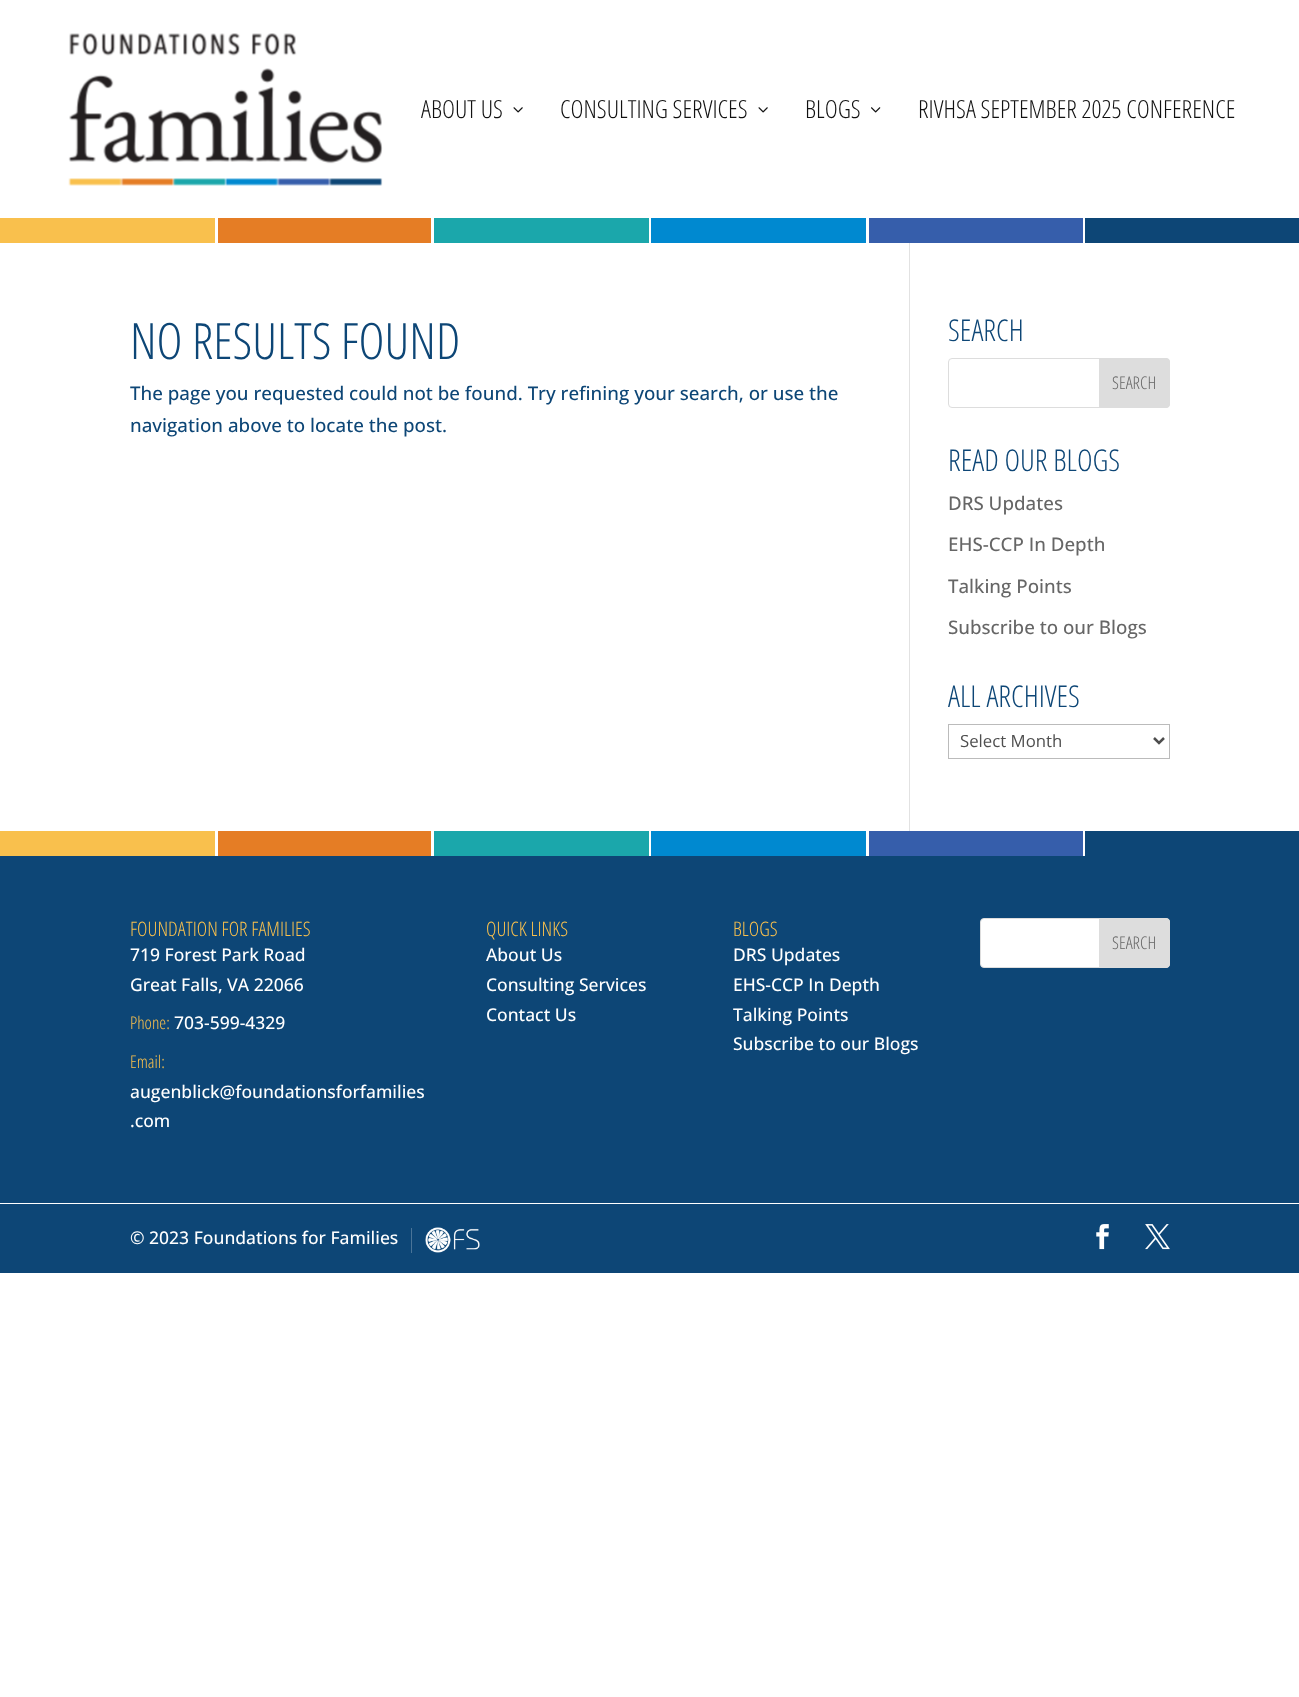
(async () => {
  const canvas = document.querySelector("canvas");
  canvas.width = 1299;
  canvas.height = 1697;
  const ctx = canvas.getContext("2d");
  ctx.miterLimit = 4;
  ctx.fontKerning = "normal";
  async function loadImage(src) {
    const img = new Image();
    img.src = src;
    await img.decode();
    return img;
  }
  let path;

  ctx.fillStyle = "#ffffff";
  ctx.fillRect(0, 0, 1299, 1697);
  ctx.drawImage(await loadImage("img/1.png"), 68, 33, 315, 153);
  ctx.drawImage(await loadImage("img/2.png"), 513, 107, 10, 6);
  ctx.drawImage(await loadImage("img/2.png"), 758, 107, 10, 6);
  ctx.drawImage(await loadImage("img/3.png"), 871, 107, 10, 6);
  for (const [x, y, w, h, color] of [
    [0, 218, 215, 25, "#f9c04d"],
    [218, 218, 213, 25, "#e57d25"],
    [434, 218, 215, 25, "#1ba7ab"],
    [651, 218, 215, 25, "#0089d0"],
    [869, 218, 214, 25, "#365eab"],
    [1085, 218, 214, 25, "#0d4676"],
    [909, 243, 1, 588, "#e2e2e2"],
  ]) {
    ctx.fillStyle = color;
    ctx.fillRect(x, y, w, h);
  }
  ctx.beginPath();
  ctx.roundRect(948.5, 358.5, 221, 49, 3.5);
  ctx.strokeStyle = "#dddddd";
  ctx.stroke();
  ctx.fillStyle = "#dddddd";
  ctx.beginPath();
  ctx.roundRect(1099.5, 358.5, 70, 49, [0, 3.5, 3.5, 0]);
  ctx.fill();
  ctx.stroke();
  ctx.strokeStyle = "#bbbbbb";
  ctx.strokeRect(948.5, 724.5, 221, 34);
  path = new Path2D("M1154 738L1159 743L1164 738");
  ctx.strokeStyle = "#4e4e4e";
  ctx.lineWidth = 2.5;
  ctx.stroke(path);
  for (const [x, y, w, h, color] of [
    [0, 856, 1299, 417, "#0d4676"],
    [0, 831, 215, 25, "#f9c04d"],
    [218, 831, 213, 25, "#e57d25"],
    [434, 831, 215, 25, "#1ba7ab"],
    [651, 831, 215, 25, "#0089d0"],
    [869, 831, 214, 25, "#365eab"],
    [1085, 831, 214, 25, "#0d4676"],
  ]) {
    ctx.fillStyle = color;
    ctx.fillRect(x, y, w, h);
  }
  ctx.fillStyle = "#ffffff";
  ctx.beginPath();
  ctx.roundRect(980.5, 918.5, 189, 49, 3.5);
  ctx.fill();
  ctx.strokeStyle = "#dddddd";
  ctx.lineWidth = 1;
  ctx.stroke();
  ctx.fillStyle = "#dddddd";
  ctx.beginPath();
  ctx.roundRect(1099.5, 918.5, 70, 49, [0, 3.5, 3.5, 0]);
  ctx.fill();
  ctx.stroke();
  ctx.fillStyle = "#ffffff";
  ctx.fillRect(0, 1203, 1299, 1);
  ctx.fillStyle = "#4a7498";
  ctx.fillRect(411, 1228, 1, 25);
  ctx.drawImage(await loadImage("img/4.png"), 425, 1227, 55, 26);
  ctx.drawImage(await loadImage("img/5.png"), 1096, 1224, 13, 26);
  ctx.drawImage(await loadImage("img/6.png"), 1145, 1224, 25, 26);
  ctx.font = "300 25px Open Sans Condensed";
  ctx.fillStyle = "#111111";
  for (const [text, x, y] of [
    ["ABOUT US", 421, 118],
    ["CONSULTING SERVICES", 560, 118],
    ["BLOGS", 805, 118],
    ["RIVHSA SEPTEMBER 2025 CONFERENCE", 918, 118],
  ]) {
    ctx.fillText(text, x, y);
  }
  ctx.font = "300 50px Open Sans Condensed";
  ctx.fillStyle = "#0d4676";
  ctx.fillText("NO RESULTS FOUND", 130, 359);
  ctx.font = "500 18.75px Open Sans";
  ctx.fillText("The page you requested could not be found. Try refining your search, or use the", 130, 400);
  ctx.fillText("navigation above to locate the post.", 130, 432);
  ctx.font = "300 30px Open Sans Condensed";
  ctx.fillText("SEARCH", 948, 341);
  ctx.font = "300 17.5px Open Sans Condensed";
  ctx.fillStyle = "#666666";
  ctx.fillText("SEARCH", 1112, 389);
  ctx.font = "300 30px Open Sans Condensed";
  ctx.fillStyle = "#0d4676";
  ctx.fillText("READ OUR BLOGS", 948, 471);
  ctx.font = "500 18.75px Open Sans";
  ctx.fillStyle = "#666666";
  for (const [text, x, y] of [
    ["DRS Updates", 948, 510],
    ["EHS-CCP In Depth", 948, 551],
    ["Talking Points", 948, 593],
    ["Subscribe to our Blogs", 948, 634],
  ]) {
    ctx.fillText(text, x, y);
  }
  ctx.font = "300 30px Open Sans Condensed";
  ctx.fillStyle = "#0d4676";
  ctx.fillText("ALL ARCHIVES", 948, 707);
  ctx.font = "16.75px Open Sans";
  ctx.fillStyle = "#4e4e4e";
  ctx.fillText("Select Month", 960, 747);
  ctx.font = "300 20px Open Sans Condensed";
  ctx.fillStyle = "#f9c04d";
  ctx.fillText("FOUNDATION FOR FAMILIES", 130, 936);
  ctx.font = "500 17.5px Open Sans";
  ctx.fillStyle = "#ffffff";
  ctx.fillText("719 Forest Park Road", 130, 961);
  ctx.fillText("Great Falls, VA 22066", 130, 991);
  ctx.font = "300 17.5px Open Sans Condensed";
  ctx.fillStyle = "#f9c04d";
  ctx.fillText("Phone:", 130, 1029);
  ctx.font = "500 17.5px Open Sans";
  ctx.fillStyle = "#ffffff";
  ctx.fillText("703-599-4329", 174, 1029);
  ctx.font = "300 17.5px Open Sans Condensed";
  ctx.fillStyle = "#f9c04d";
  ctx.fillText("Email:", 130, 1068);
  ctx.font = "500 17.5px Open Sans";
  ctx.fillStyle = "#ffffff";
  ctx.fillText("augenblick@foundationsforfamilies", 130, 1098);
  ctx.fillText(".com", 130, 1127);
  ctx.font = "300 20px Open Sans Condensed";
  ctx.fillStyle = "#f9c04d";
  ctx.fillText("QUICK LINKS", 486, 936);
  ctx.font = "500 17.5px Open Sans";
  ctx.fillStyle = "#ffffff";
  for (const [text, x, y] of [
    ["About Us", 486, 961],
    ["Consulting Services", 486, 991],
    ["Contact Us", 486, 1021],
  ]) {
    ctx.fillText(text, x, y);
  }
  ctx.font = "300 20px Open Sans Condensed";
  ctx.fillStyle = "#f9c04d";
  ctx.fillText("BLOGS", 733, 936);
  ctx.font = "500 17.5px Open Sans";
  ctx.fillStyle = "#ffffff";
  for (const [text, x, y] of [
    ["DRS Updates", 733, 961],
    ["EHS-CCP In Depth", 733, 991],
    ["Talking Points", 733, 1021],
    ["Subscribe to our Blogs", 733, 1050],
  ]) {
    ctx.fillText(text, x, y);
  }
  ctx.font = "300 17.5px Open Sans Condensed";
  ctx.fillStyle = "#666666";
  ctx.fillText("SEARCH", 1112, 949);
  ctx.font = "500 17.5px Open Sans";
  ctx.fillStyle = "#ffffff";
  ctx.fillText("© 2023 Foundations for Families", 130, 1244);
})();
